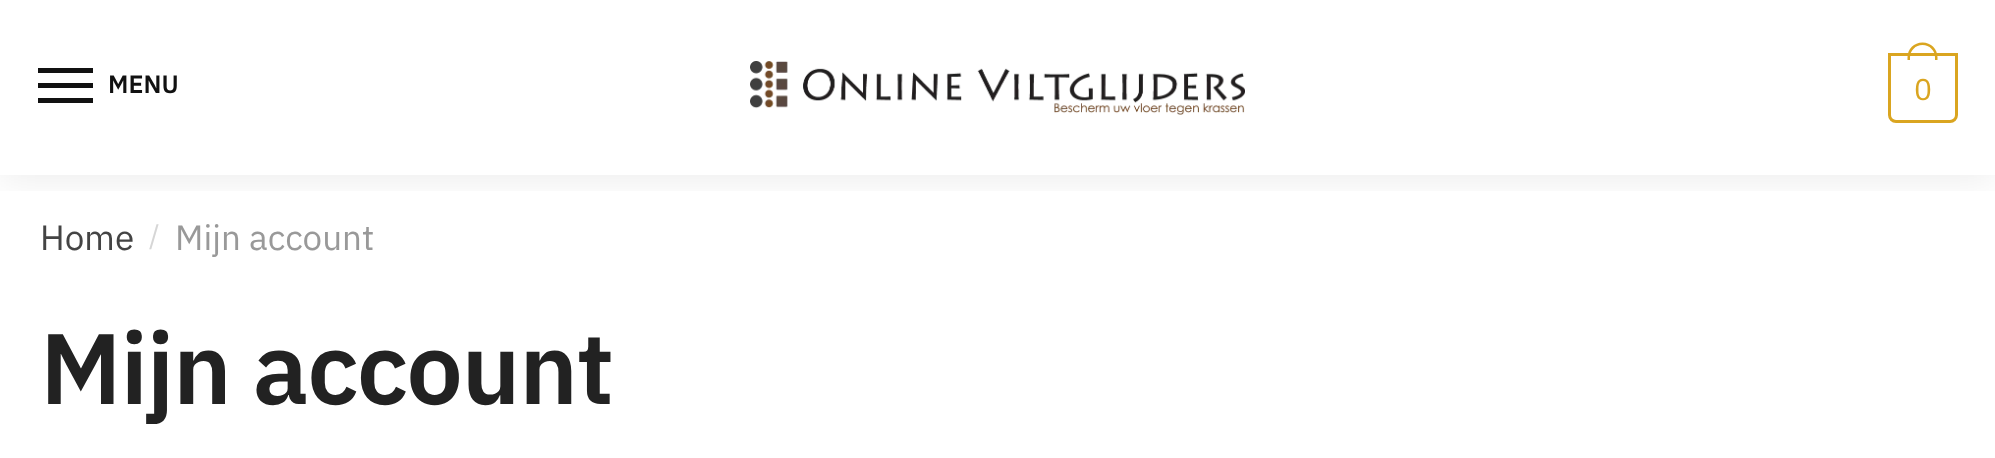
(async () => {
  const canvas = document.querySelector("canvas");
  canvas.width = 1995;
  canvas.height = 458;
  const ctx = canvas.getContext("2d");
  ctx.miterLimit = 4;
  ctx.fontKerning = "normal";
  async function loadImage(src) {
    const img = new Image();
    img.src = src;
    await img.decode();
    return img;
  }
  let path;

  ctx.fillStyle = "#ffffff";
  ctx.fillRect(0, 0, 1995, 458);
  ctx.save();
  ctx.beginPath();
  ctx.rect(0, 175, 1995, 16);
  ctx.clip();
  ctx.fillStyle = "rgba(0, 0, 0, 0.08)";
  ctx.filter = "blur(19px)";
  ctx.beginPath();
  ctx.rect(0, 3, 1995, 175);
  ctx.fill();
  ctx.filter = "none";
  ctx.restore();
  for (const [x, y, w, h, color] of [
    [38, 68, 55, 5, "#111111"],
    [38, 83, 55, 5, "#111111"],
    [38, 98, 55, 5, "#111111"],
  ]) {
    ctx.fillStyle = color;
    ctx.fillRect(x, y, w, h);
  }
  ctx.drawImage(await loadImage("img/1.png"), 750, 61, 495, 54);
  ctx.beginPath();
  ctx.roundRect(1889.5, 54.5, 67, 67, [0, 0, 6.5, 6.5]);
  ctx.strokeStyle = "#daa520";
  ctx.lineWidth = 3;
  ctx.stroke();
  ctx.fillStyle = "#daa520";
  path = new Path2D("M1922.5 42.5C1931 42.5 1937.5 49 1937.5 57.5V60H1907.5V57.5C1907.5 49 1914 42.5 1922.5 42.5ZM1922.5 45C1929.5 45 1935 50.5 1935 57.5V60H1910V57.5C1910 50.5 1915.5 45 1922.5 45Z");
  ctx.fill(path, "evenodd");
  ctx.font = "600 25px IBM Plex Sans";
  ctx.fillStyle = "#111111";
  ctx.fillText("MENU", 108, 93);
  ctx.letterSpacing = "-2px";
  ctx.font = "30px IBM Plex Sans";
  ctx.fillStyle = "#daa520";
  ctx.fillText("0", 1914, 100);
  ctx.letterSpacing = "0px";
  ctx.font = "35px IBM Plex Sans";
  ctx.fillStyle = "#444444";
  ctx.fillText("Home", 40, 250);
  ctx.font = "28px IBM Plex Sans";
  ctx.fillStyle = "#d6d6d6";
  ctx.fillText("/", 149, 245);
  ctx.font = "35px IBM Plex Sans";
  ctx.fillStyle = "#999999";
  ctx.fillText("Mijn account", 175, 250);
  ctx.letterSpacing = "-1.25px";
  ctx.font = "600 100px IBM Plex Sans";
  ctx.fillStyle = "#222222";
  ctx.fillText("Mijn account", 40, 404);
})();
